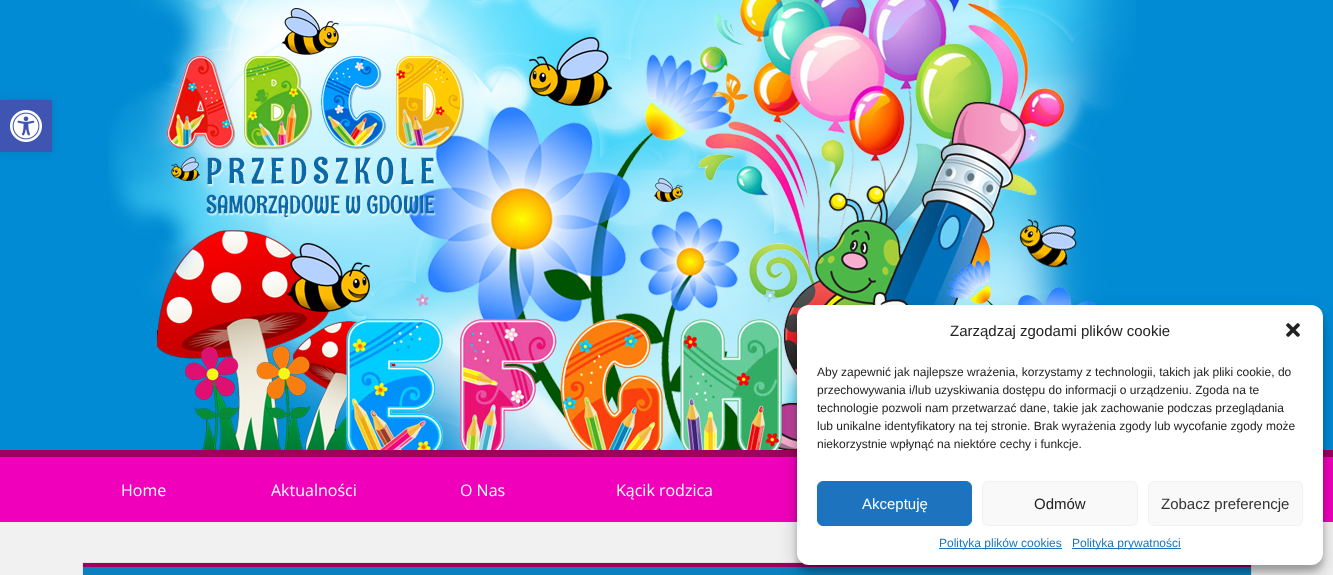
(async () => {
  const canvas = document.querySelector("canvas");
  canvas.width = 1333;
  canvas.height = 575;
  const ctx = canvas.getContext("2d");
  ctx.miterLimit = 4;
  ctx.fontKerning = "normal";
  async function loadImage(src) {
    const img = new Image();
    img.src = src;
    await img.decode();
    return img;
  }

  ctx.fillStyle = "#ffffff";
  ctx.fillRect(0, 0, 1333, 575);
  ctx.drawImage(await loadImage("img/1.png"), 0, 0, 1333, 522);
  ctx.fillStyle = "rgba(0, 0, 0, 0.1)";
  ctx.filter = "blur(5px)";
  ctx.beginPath();
  ctx.rect(0, 100, 52, 52);
  ctx.fill();
  ctx.filter = "none";
  ctx.fillStyle = "#4054b2";
  ctx.fillRect(0, 100, 52, 52);
  ctx.drawImage(await loadImage("img/2.png"), 10, 110, 32, 32);
  ctx.drawImage(await loadImage("img/3.png"), 1113, 0, 23, 305);
  ctx.drawImage(await loadImage("img/4.png"), 108, 0, 1005, 456);
  ctx.fillStyle = "#f1f1f1";
  ctx.fillRect(0, 522, 1333, 53);
  ctx.strokeStyle = "#e3e3e3";
  ctx.strokeRect(82.5, 562.5, 1169, 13);
  ctx.fillStyle = "#0a81be";
  ctx.fillRect(83, 567, 1168, 8);
  ctx.fillStyle = "#9e005d";
  ctx.fillRect(83, 563, 1168, 4);
  ctx.fillStyle = "rgba(0, 0, 0, 0.23)";
  ctx.filter = "blur(3px)";
  ctx.beginPath();
  ctx.roundRect(797, 311, 526, 260, 12);
  ctx.fill();
  ctx.filter = "none";
  ctx.fillStyle = "rgba(0, 0, 0, 0.19)";
  ctx.filter = "blur(10px)";
  ctx.beginPath();
  ctx.roundRect(797, 315, 526, 260, 12);
  ctx.fill();
  ctx.filter = "none";
  ctx.fillStyle = "#ffffff";
  ctx.beginPath();
  ctx.roundRect(797, 305, 526, 260, 12);
  ctx.fill();
  ctx.drawImage(await loadImage("img/5.png"), 1286, 323, 14, 14);
  ctx.fillStyle = "#1e73be";
  ctx.beginPath();
  ctx.roundRect(817.5, 481.5, 154, 44, 5.5);
  ctx.fill();
  ctx.strokeStyle = "#1e73be";
  ctx.stroke();
  ctx.fillStyle = "#f9f9f9";
  ctx.beginPath();
  ctx.roundRect(982.5, 481.5, 155, 44, 5.5);
  ctx.fill();
  ctx.strokeStyle = "#f2f2f2";
  ctx.stroke();
  ctx.beginPath();
  ctx.roundRect(1148.5, 481.5, 154, 44, 5.5);
  ctx.fill();
  ctx.stroke();
  ctx.fillStyle = "#1e73be";
  ctx.fillRect(939, 548, 123, 1);
  ctx.fillRect(1072, 548, 109, 1);
  ctx.font = "16px Open Sans";
  ctx.fillStyle = "#ffffff";
  for (const [text, x, y] of [
    ["Home", 121, 496],
    ["Aktualności", 271, 496],
    ["O Nas", 460, 496],
    ["Kącik rodzica", 616, 496],
  ]) {
    ctx.fillText(text, x, y);
  }
  ctx.font = "15px Liberation Sans";
  ctx.fillStyle = "#222222";
  ctx.fillText("Zarządzaj zgodami plików cookie", 950, 336);
  ctx.font = "12px Liberation Sans";
  for (const [text, x, y] of [
    ["Aby zapewnić jak najlepsze wrażenia, korzystamy z technologii, takich jak pliki cookie, do", 817, 376],
    ["przechowywania i/lub uzyskiwania dostępu do informacji o urządzeniu. Zgoda na te", 817, 394],
    ["technologie pozwoli nam przetwarzać dane, takie jak zachowanie podczas przeglądania", 817, 412],
    ["lub unikalne identyfikatory na tej stronie. Brak wyrażenia zgody lub wycofanie zgody może", 817, 430],
    ["niekorzystnie wpłynąć na niektóre cechy i funkcje.", 817, 448],
  ]) {
    ctx.fillText(text, x, y);
  }
  ctx.font = "15px Liberation Sans";
  ctx.fillStyle = "#ffffff";
  ctx.fillText("Akceptuję", 862, 509);
  ctx.fillStyle = "#222222";
  ctx.fillText("Odmów", 1034, 509);
  ctx.fillStyle = "#333333";
  ctx.fillText("Zobacz preferencje", 1161, 509);
  ctx.font = "12px Liberation Sans";
  ctx.fillStyle = "#1e73be";
  ctx.fillText("Polityka plików cookies", 939, 547);
  ctx.fillText("Polityka prywatności", 1072, 547);
})();
